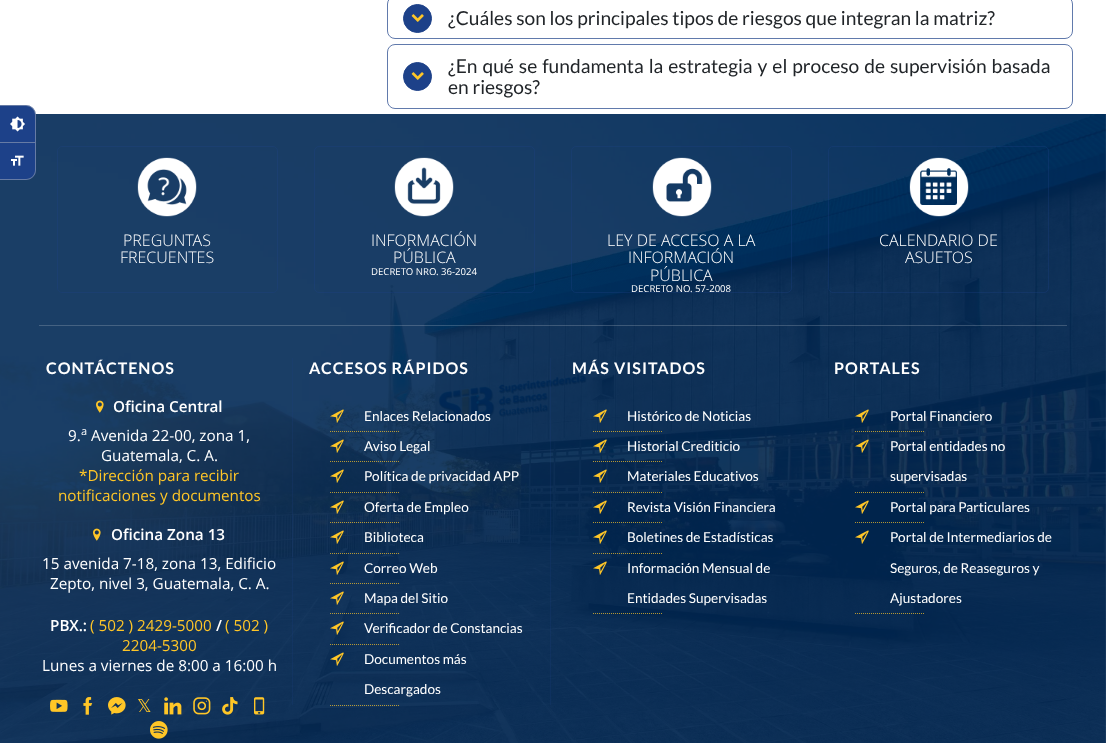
(async () => {
  const canvas = document.querySelector("canvas");
  canvas.width = 1106;
  canvas.height = 743;
  const ctx = canvas.getContext("2d");
  ctx.miterLimit = 4;
  ctx.fontKerning = "normal";
  async function loadImage(src) {
    const img = new Image();
    img.src = src;
    await img.decode();
    return img;
  }
  let path;

  ctx.fillStyle = "#ffffff";
  ctx.fillRect(0, 0, 1106, 743);
  ctx.beginPath();
  ctx.roundRect(387.5, -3.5, 685, 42, 7.5);
  ctx.strokeStyle = "#617aac";
  ctx.stroke();
  ctx.fillStyle = "#1d4189";
  ctx.beginPath();
  ctx.arc(417.5, 18.5, 14, 0, Math.PI * 2);
  ctx.fill();
  ctx.strokeStyle = "#1d4189";
  ctx.stroke();
  ctx.drawImage(await loadImage("img/1.png"), 411, 14, 13, 8);
  ctx.beginPath();
  ctx.roundRect(387.5, 44.5, 685, 64, 7.5);
  ctx.strokeStyle = "#617aac";
  ctx.stroke();
  ctx.beginPath();
  ctx.arc(417.5, 76.5, 14, 0, Math.PI * 2);
  ctx.fill();
  ctx.strokeStyle = "#1d4189";
  ctx.stroke();
  ctx.drawImage(await loadImage("img/1.png"), 411, 72, 13, 8);
  ctx.drawImage(await loadImage("img/4.png"), 0, 114, 1106, 629);
  ctx.beginPath();
  ctx.roundRect(0, 105, 36, 38, [0, 10, 0, 0]);
  ctx.fill();
  ctx.fillStyle = "rgba(204, 204, 204, 0.42)";
  path = new Path2D("M0 105H26C31.5 105 36 109.5 36 115V143H0ZM0 106H26C31 106 35 110 35 115V142H0Z");
  ctx.fill(path, "evenodd");
  ctx.drawImage(await loadImage("img/2.png"), 10, 116, 15, 16);
  ctx.fillStyle = "#1d4189";
  ctx.beginPath();
  ctx.roundRect(0, 143, 36, 37, [0, 0, 10, 0]);
  ctx.fill();
  ctx.fillStyle = "rgba(204, 204, 204, 0.42)";
  path = new Path2D("M0 143H36V170C36 175.5 31.5 180 26 180H0ZM0 143H35V170C35 175 31 179 26 179H0Z");
  ctx.fill(path, "evenodd");
  ctx.drawImage(await loadImage("img/3.png"), 11, 155, 13, 11);
  ctx.fillStyle = "rgba(246, 246, 246, 0.2)";
  ctx.fillRect(39, 325, 1028, 1);
  ctx.beginPath();
  ctx.roundRect(57.5, 146.5, 220, 146, 4.5);
  ctx.strokeStyle = "#1b3f70";
  ctx.stroke();
  ctx.drawImage(await loadImage("img/5.png"), 137, 157, 60, 60);
  ctx.beginPath();
  ctx.roundRect(314.5, 146.5, 220, 146, 4.5);
  ctx.strokeStyle = "rgba(29, 65, 137, 0.3)";
  ctx.stroke();
  ctx.drawImage(await loadImage("img/6.png"), 394, 157, 60, 60);
  ctx.beginPath();
  ctx.roundRect(571.5, 146.5, 220, 146, 4.5);
  ctx.stroke();
  ctx.drawImage(await loadImage("img/7.png"), 652, 157, 60, 60);
  ctx.beginPath();
  ctx.roundRect(828.5, 146.5, 220, 146, 4.5);
  ctx.stroke();
  ctx.drawImage(await loadImage("img/8.png"), 909, 157, 60, 60);
  ctx.drawImage(await loadImage("img/9.png"), 96, 400, 8, 13);
  ctx.drawImage(await loadImage("img/10.png"), 93, 528, 8, 13);
  ctx.drawImage(await loadImage("img/11.png"), 50, 699, 18, 13);
  ctx.drawImage(await loadImage("img/12.png"), 83, 697, 10, 18);
  ctx.drawImage(await loadImage("img/13.png"), 108, 697, 18, 18);
  ctx.drawImage(await loadImage("img/14.png"), 164, 697, 18, 18);
  ctx.drawImage(await loadImage("img/15.png"), 193, 697, 18, 18);
  ctx.drawImage(await loadImage("img/16.png"), 222, 697, 16, 18);
  ctx.drawImage(await loadImage("img/17.png"), 254, 697, 11, 18);
  ctx.drawImage(await loadImage("img/18.png"), 150, 721, 18, 18);
  ctx.fillStyle = "rgba(29, 65, 137, 0.2)";
  ctx.fillRect(550, 358, 1, 347);
  ctx.fillRect(292, 358, 1, 347);
  ctx.drawImage(await loadImage("img/19.png"), 330, 409, 14, 14);
  path = new Path2D("M330 431.5H400");
  ctx.strokeStyle = "rgba(255, 198, 39, 0.7)";
  ctx.setLineDash([1, 1]);
  ctx.stroke(path);
  ctx.drawImage(await loadImage("img/20.png"), 330, 439, 14, 14);
  path = new Path2D("M330 461.5H400");
  ctx.stroke(path);
  ctx.drawImage(await loadImage("img/21.png"), 330, 469, 14, 14);
  path = new Path2D("M330 492.5H400");
  ctx.stroke(path);
  ctx.drawImage(await loadImage("img/22.png"), 330, 500, 14, 14);
  path = new Path2D("M330 522.5H400");
  ctx.stroke(path);
  ctx.drawImage(await loadImage("img/23.png"), 330, 530, 14, 14);
  path = new Path2D("M330 553.5H400");
  ctx.stroke(path);
  ctx.drawImage(await loadImage("img/24.png"), 330, 561, 14, 14);
  path = new Path2D("M330 583.5H400");
  ctx.stroke(path);
  ctx.drawImage(await loadImage("img/25.png"), 330, 591, 14, 14);
  path = new Path2D("M330 613.5H400");
  ctx.stroke(path);
  ctx.drawImage(await loadImage("img/26.png"), 330, 621, 14, 14);
  path = new Path2D("M330 644.5H400");
  ctx.stroke(path);
  ctx.drawImage(await loadImage("img/27.png"), 330, 652, 14, 14);
  path = new Path2D("M330 705.5H400");
  ctx.strokeStyle = "#b89a37";
  ctx.stroke(path);
  ctx.drawImage(await loadImage("img/28.png"), 593, 409, 14, 14);
  path = new Path2D("M593 431.5H663");
  ctx.strokeStyle = "rgba(255, 198, 39, 0.7)";
  ctx.stroke(path);
  ctx.drawImage(await loadImage("img/29.png"), 593, 439, 14, 14);
  path = new Path2D("M593 461.5H663");
  ctx.stroke(path);
  ctx.drawImage(await loadImage("img/30.png"), 593, 469, 14, 14);
  path = new Path2D("M593 492.5H663");
  ctx.stroke(path);
  ctx.drawImage(await loadImage("img/31.png"), 593, 500, 14, 14);
  path = new Path2D("M593 522.5H663");
  ctx.stroke(path);
  ctx.drawImage(await loadImage("img/32.png"), 593, 530, 14, 14);
  path = new Path2D("M593 553.5H663");
  ctx.stroke(path);
  ctx.drawImage(await loadImage("img/33.png"), 593, 561, 14, 14);
  path = new Path2D("M593 613.5H663");
  ctx.stroke(path);
  ctx.drawImage(await loadImage("img/34.png"), 855, 409, 14, 14);
  path = new Path2D("M855 431.5H925");
  ctx.stroke(path);
  ctx.drawImage(await loadImage("img/35.png"), 855, 439, 14, 14);
  path = new Path2D("M855 492.5H925");
  ctx.stroke(path);
  ctx.drawImage(await loadImage("img/36.png"), 855, 500, 14, 14);
  path = new Path2D("M855 522.5H925");
  ctx.strokeStyle = "#b39532";
  ctx.stroke(path);
  ctx.drawImage(await loadImage("img/37.png"), 855, 530, 14, 14);
  path = new Path2D("M855 613.5H925");
  ctx.strokeStyle = "rgba(255, 198, 39, 0.7)";
  ctx.stroke(path);
  ctx.font = "19.2px Lato";
  ctx.fillStyle = "#212529";
  ctx.fillText("¿Cuáles son los principales tipos de riesgos que integran la matriz?", 448, 25);
  ctx.wordSpacing = "1.25px";
  ctx.fillText("¿En qué se fundamenta la estrategia y el proceso de supervisión basada", 448, 73);
  ctx.wordSpacing = "0px";
  ctx.fillText("en riesgos?", 448, 94);
  ctx.font = "300 16px Open Sans";
  ctx.fillStyle = "#ffffff";
  for (const [text, x, y] of [
    ["PREGUNTAS", 123, 246],
    ["FRECUENTES", 120, 263],
    ["INFORMACIÓN", 371, 246],
    ["PÚBLICA", 393, 263],
  ]) {
    ctx.fillText(text, x, y);
  }
  ctx.font = "9.6px Open Sans";
  ctx.fillText("DECRETO NRO. 36-2024", 371, 275);
  ctx.font = "300 16px Open Sans";
  for (const [text, x, y] of [
    ["LEY DE ACCESO A LA", 607, 246],
    ["INFORMACIÓN", 628, 263],
    ["PÚBLICA", 650, 281],
  ]) {
    ctx.fillText(text, x, y);
  }
  ctx.font = "9.6px Open Sans";
  ctx.fillText("DECRETO NO. 57-2008", 631, 292);
  ctx.font = "300 16px Open Sans";
  ctx.fillText("CALENDARIO DE", 879, 246);
  ctx.fillText("ASUETOS", 905, 263);
  ctx.letterSpacing = "1px";
  ctx.font = "bold 16px Lato";
  ctx.fillText("CONTÁCTENOS", 46, 374);
  ctx.letterSpacing = "0px";
  ctx.font = "600 15.25px Open Sans";
  ctx.fillText("Oficina Central", 113, 412);
  ctx.font = "15.25px Open Sans";
  ctx.fillText("9.", 68, 441);
  ctx.font = "11px Open Sans";
  ctx.fillText("a", 81, 435);
  ctx.font = "15.25px Open Sans";
  ctx.fillText("Avenida 22-00, zona 1,", 91, 441);
  ctx.fillText("Guatemala, C. A.", 101, 461);
  ctx.fillStyle = "#ffc627";
  ctx.fillText("*Dirección para recibir", 79, 481);
  ctx.fillText("notificaciones y documentos", 58, 501);
  ctx.font = "600 15.25px Open Sans";
  ctx.fillStyle = "#ffffff";
  ctx.fillText("Oficina Zona 13", 111, 540);
  ctx.font = "15.25px Open Sans";
  ctx.fillText("15 avenida 7-18, zona 13, Edificio", 42, 569);
  ctx.fillText("Zepto, nivel 3, Guatemala, C. A.", 50, 589);
  ctx.font = "600 15.25px Open Sans";
  ctx.fillText("PBX.:", 50, 631);
  ctx.font = "15.25px Open Sans";
  ctx.fillStyle = "#ffc627";
  ctx.fillText("( 502 ) 2429-5000", 90, 631);
  ctx.font = "600 15.25px Open Sans";
  ctx.fillStyle = "#ffffff";
  ctx.fillText("/", 216, 631);
  ctx.font = "15.25px Open Sans";
  ctx.fillStyle = "#ffc627";
  ctx.fillText("( 502 )", 225, 631);
  ctx.fillText("2204-5300", 122, 651);
  ctx.fillStyle = "#ffffff";
  ctx.fillText("Lunes a viernes de 8:00 a 16:00 h", 42, 671);
  ctx.font = "18px DejaVu Sans";
  ctx.fillStyle = "#ffc627";
  ctx.fillText("𝕏", 137, 712);
  ctx.letterSpacing = "1px";
  ctx.font = "bold 16px Lato";
  ctx.fillStyle = "#ffffff";
  ctx.fillText("ACCESOS RÁPIDOS", 309, 374);
  ctx.letterSpacing = "0px";
  ctx.font = "13.6px Lato";
  for (const [text, x, y] of [
    ["Enlaces Relacionados", 364, 421],
    ["Aviso Legal", 364, 451],
    ["Política de privacidad APP", 364, 481],
    ["Oferta de Empleo", 364, 512],
    ["Biblioteca", 364, 542],
    ["Correo Web", 364, 573],
    ["Mapa del Sitio", 364, 603],
    ["Verificador de Constancias", 364, 633],
    ["Documentos más", 364, 664],
    ["Descargados", 364, 694],
  ]) {
    ctx.fillText(text, x, y);
  }
  ctx.letterSpacing = "1px";
  ctx.font = "bold 16px Lato";
  ctx.fillText("MÁS VISITADOS", 572, 374);
  ctx.letterSpacing = "0px";
  ctx.font = "13.6px Lato";
  for (const [text, x, y] of [
    ["Histórico de Noticias", 627, 421],
    ["Historial Crediticio", 627, 451],
    ["Materiales Educativos", 627, 481],
    ["Revista Visión Financiera", 627, 512],
    ["Boletines de Estadísticas", 627, 542],
    ["Información Mensual de", 627, 573],
    ["Entidades Supervisadas", 627, 603],
  ]) {
    ctx.fillText(text, x, y);
  }
  ctx.letterSpacing = "1px";
  ctx.font = "bold 16px Lato";
  ctx.fillText("PORTALES", 834, 374);
  ctx.letterSpacing = "0px";
  ctx.font = "13.6px Lato";
  for (const [text, x, y] of [
    ["Portal Financiero", 890, 421],
    ["Portal entidades no", 890, 451],
    ["supervisadas", 890, 481],
    ["Portal para Particulares", 890, 512],
    ["Portal de Intermediarios de", 890, 542],
    ["Seguros, de Reaseguros y", 890, 573],
    ["Ajustadores", 890, 603],
  ]) {
    ctx.fillText(text, x, y);
  }
})();
